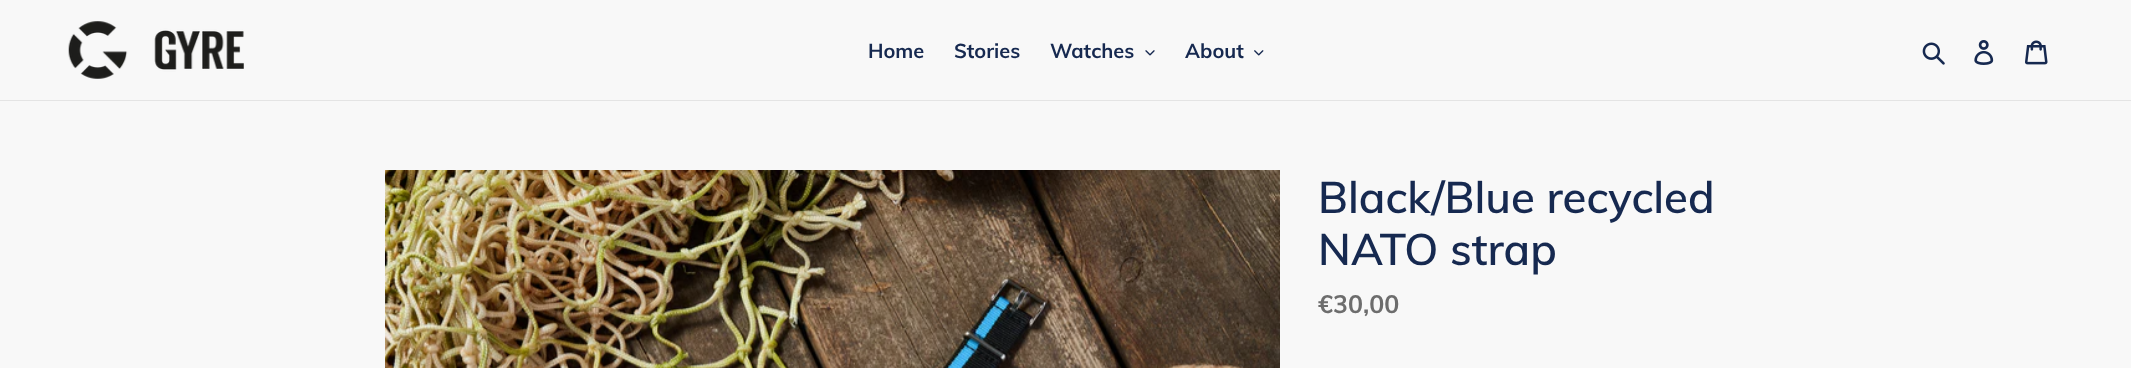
(async () => {
  const canvas = document.querySelector("canvas");
  canvas.width = 2131;
  canvas.height = 368;
  const ctx = canvas.getContext("2d");
  ctx.miterLimit = 4;
  ctx.fontKerning = "normal";
  async function loadImage(src) {
    const img = new Image();
    img.src = src;
    await img.decode();
    return img;
  }

  ctx.fillStyle = "#f8f8f8";
  ctx.fillRect(0, 0, 2131, 368);
  ctx.fillStyle = "#e4e4e4";
  ctx.fillRect(0, 100, 2131, 1);
  ctx.drawImage(await loadImage("img/1.png"), 68, 21, 176, 58);
  ctx.drawImage(await loadImage("img/2.png"), 1145, 50, 10, 6);
  ctx.drawImage(await loadImage("img/3.png"), 1254, 50, 10, 6);
  ctx.drawImage(await loadImage("img/4.png"), 1922, 42, 23, 23);
  ctx.drawImage(await loadImage("img/5.png"), 1974, 40, 20, 25);
  ctx.drawImage(await loadImage("img/6.png"), 2025, 40, 23, 25);
  ctx.drawImage(await loadImage("img/7.png"), 385, 170, 895, 198);
  ctx.font = "bold 20px Muli";
  ctx.fillStyle = "#162950";
  for (const [text, x, y] of [
    ["Home", 868, 58],
    ["Stories", 954, 58],
    ["Watches", 1050, 58],
    ["About", 1185, 58],
  ]) {
    ctx.fillText(text, x, y);
  }
  ctx.font = "600 43.75px Muli";
  ctx.fillText("Black/Blue recycled", 1318, 213);
  ctx.fillText("NATO strap", 1318, 265);
  ctx.font = "bold 25px Muli";
  ctx.fillStyle = "#6d6d6d";
  ctx.fillText("€30,00", 1318, 313);
})();
